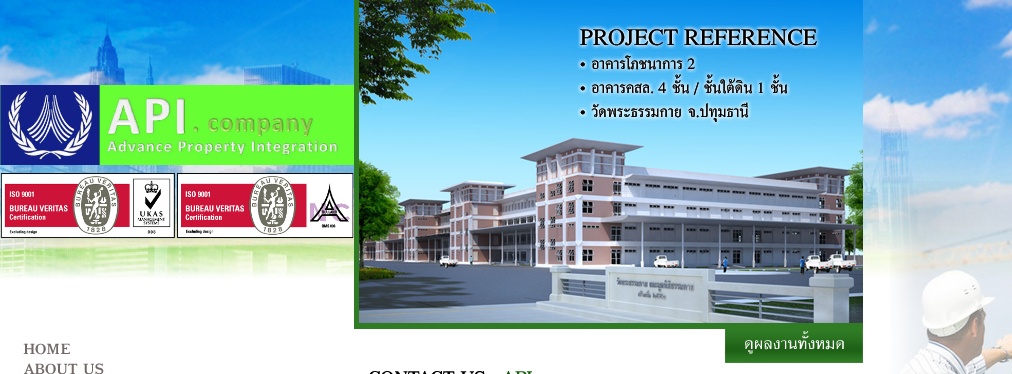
(async () => {
  const canvas = document.querySelector("canvas");
  canvas.width = 1012;
  canvas.height = 374;
  const ctx = canvas.getContext("2d");
  ctx.miterLimit = 4;
  ctx.fontKerning = "normal";
  async function loadImage(src) {
    const img = new Image();
    img.src = src;
    await img.decode();
    return img;
  }

  ctx.fillStyle = "#ffffff";
  ctx.fillRect(0, 0, 1012, 374);
  ctx.drawImage(await loadImage("img/1.png"), 0, 0, 1012, 279);
  ctx.drawImage(await loadImage("img/2.png"), 0, 85, 354, 80);
  ctx.drawImage(await loadImage("img/3.png"), 1, 173, 353, 66);
  ctx.drawImage(await loadImage("img/4.png"), 23, 343, 47, 12);
  ctx.drawImage(await loadImage("img/5.png"), 24, 363, 80, 11);
  ctx.fillStyle = "#307c24";
  ctx.fillRect(354, 0, 509, 329);
  ctx.drawImage(await loadImage("img/6.png"), 359, 0, 504, 323);
  ctx.drawImage(await loadImage("img/7.png"), 724, 329, 139, 34);
  ctx.drawImage(await loadImage("img/8.png"), 369, 371, 163, 3);
  ctx.drawImage(await loadImage("img/9.png"), 890, 181, 122, 193);
})();
